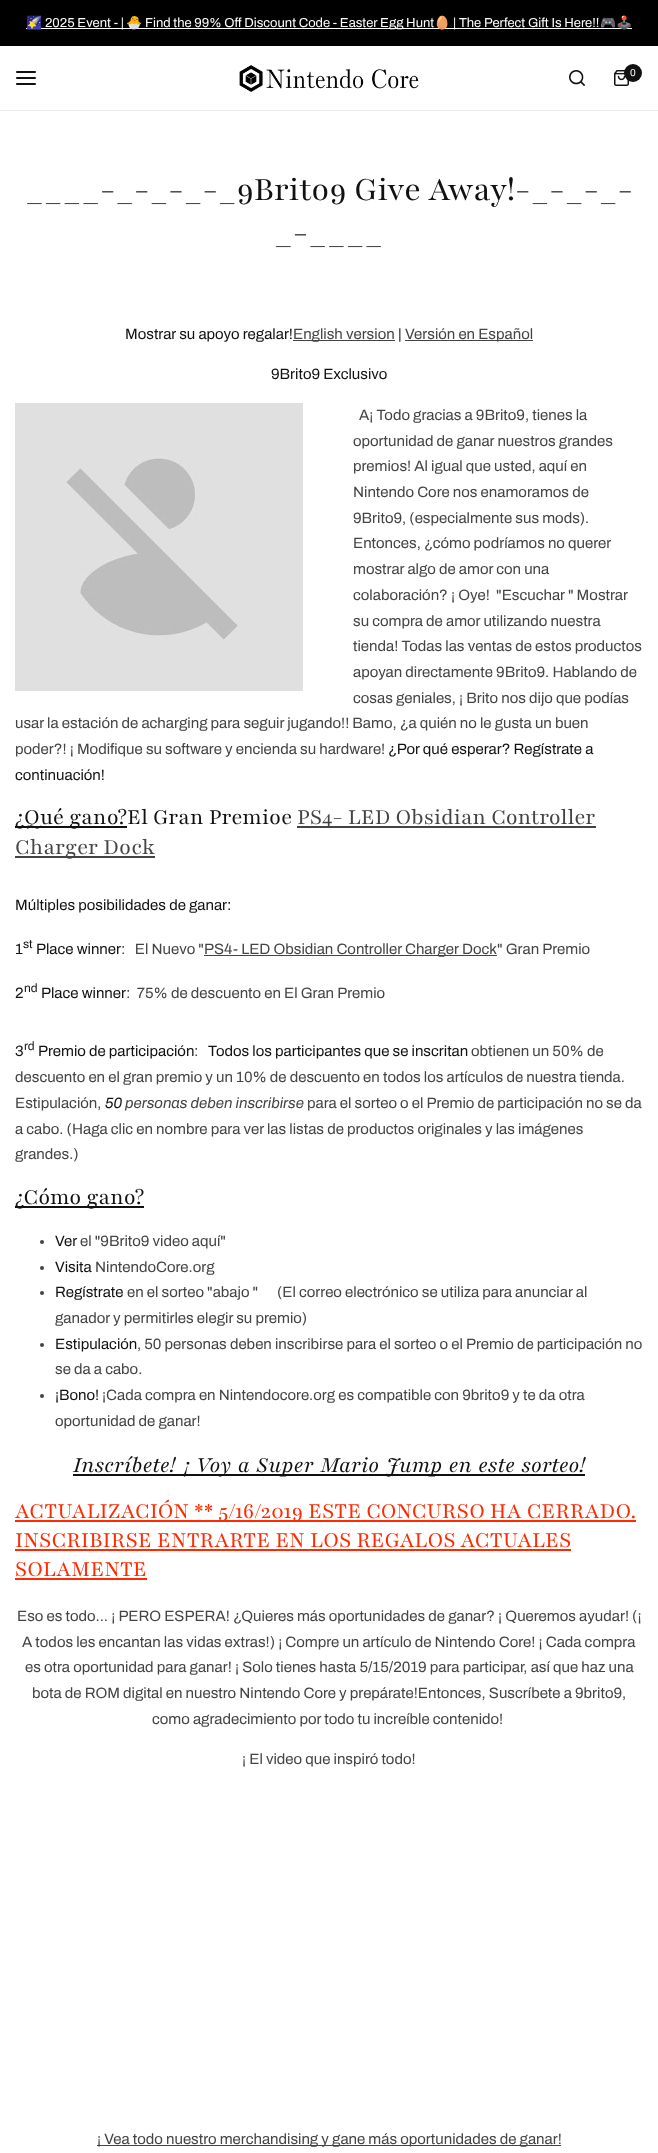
(async () => {
  const canvas = document.querySelector("canvas");
  canvas.width = 658;
  canvas.height = 2153;
  const ctx = canvas.getContext("2d");
  ctx.miterLimit = 4;
  ctx.fontKerning = "normal";
  async function loadImage(src) {
    const img = new Image();
    img.src = src;
    await img.decode();
    return img;
  }

  ctx.fillStyle = "#ffffff";
  ctx.fillRect(0, 0, 658, 2153);
  for (const [x, y, w, h, color] of [
    [0, 0, 658, 46, "#000000"],
    [26, 28, 606, 1, "#ffffff"],
    [0, 110, 658, 1, "#ebebeb"],
  ]) {
    ctx.fillStyle = color;
    ctx.fillRect(x, y, w, h);
  }
  ctx.drawImage(await loadImage("img/1.png"), 16, 71, 20, 14);
  ctx.drawImage(await loadImage("img/2.png"), 239, 65, 180, 27);
  ctx.drawImage(await loadImage("img/3.png"), 569, 70, 16, 16);
  ctx.drawImage(await loadImage("img/4.png"), 614, 70, 15, 16);
  ctx.fillStyle = "#111111";
  ctx.beginPath();
  ctx.arc(633, 73, 9, 0, Math.PI * 2);
  ctx.fill();
  ctx.fillStyle = "#444444";
  ctx.fillRect(293, 340, 102, 1);
  ctx.fillRect(405, 340, 128, 1);
  ctx.drawImage(await loadImage("img/5.png"), 15, 403, 288, 288);
  for (const [x, y, w, h, color] of [
    [15, 826, 112, 2, "#111111"],
    [297, 826, 299, 2, "#444444"],
    [15, 856, 140, 2, "#444444"],
    [204, 955, 293, 1, "#444444"],
    [15, 1206, 129, 2, "#111111"],
  ]) {
    ctx.fillStyle = color;
    ctx.fillRect(x, y, w, h);
  }
  ctx.fillStyle = "#444444";
  ctx.beginPath();
  ctx.arc(42, 1242, 2, 0, Math.PI * 2);
  ctx.fill();
  ctx.beginPath();
  ctx.arc(42, 1268, 2, 0, Math.PI * 2);
  ctx.fill();
  ctx.beginPath();
  ctx.arc(42, 1293, 2, 0, Math.PI * 2);
  ctx.fill();
  ctx.beginPath();
  ctx.arc(42, 1345, 2, 0, Math.PI * 2);
  ctx.fill();
  ctx.beginPath();
  ctx.arc(42, 1396, 2, 0, Math.PI * 2);
  ctx.fill();
  for (const [x, y, w, h, color] of [
    [73, 1474, 512, 2, "#111111"],
    [15, 1520, 621, 2, "#ff2a00"],
    [15, 1549, 556, 2, "#ff2a00"],
    [15, 1578, 132, 2, "#ff2a00"],
    [97, 2145, 464, 1, "#444444"],
  ]) {
    ctx.fillStyle = color;
    ctx.fillRect(x, y, w, h);
  }
  ctx.font = "13px Noto Color Emoji";
  ctx.fillStyle = "#ffffff";
  ctx.fillText("🌠", 26, 27);
  ctx.font = "13px Archivo";
  ctx.fillText("2025 Event - |", 45, 27);
  ctx.font = "13px Noto Color Emoji";
  ctx.fillText("🐣", 126, 27);
  ctx.font = "13px Archivo";
  ctx.fillText("Find the 99% Off Discount Code - Easter Egg Hunt", 145, 27);
  ctx.font = "13px Noto Color Emoji";
  ctx.fillText("🥚", 434, 27);
  ctx.font = "13px Archivo";
  ctx.fillText("| The Perfect Gift Is Here!!", 453, 27);
  ctx.font = "13px Noto Color Emoji";
  ctx.fillText("🎮🕹️", 600, 27);
  ctx.font = "10px Archivo";
  ctx.fillText("0", 630, 76);
  ctx.font = "36.3px Playfair";
  ctx.fillStyle = "#111111";
  ctx.fillText("____-_-_-_-_9Brito9 Give Away!-_-_-_-", 25, 200);
  ctx.fillText("_-____", 274, 243);
  ctx.font = "15px Archivo";
  ctx.fillText("Mostrar su apoyo regalar!", 125, 339);
  ctx.fillStyle = "#444444";
  ctx.fillText("English version", 293, 339);
  ctx.fillStyle = "#111111";
  ctx.fillText("|", 398, 339);
  ctx.fillStyle = "#444444";
  ctx.fillText("Versión en Español", 405, 339);
  ctx.fillStyle = "#111111";
  ctx.fillText("9Brito9 Exclusivo", 271, 379);
  ctx.fillStyle = "#444444";
  for (const [text, x, y] of [
    ["A¡ Todo gracias a 9Brito9, tienes la", 359, 420],
    ["oportunidad de ganar nuestros grandes", 353, 446],
    ["premios! Al igual que usted, aquí en", 353, 471],
    ["Nintendo Core nos enamoramos de", 353, 497],
    ["9Brito9, (especialmente sus mods).", 353, 523],
    ["Entonces, ¿cómo podríamos no querer", 353, 548],
    ["mostrar algo de amor con una", 353, 574],
    ["colaboración? ¡ Oye!  \"Escuchar \" Mostrar", 353, 600],
    ["su compra de amor utilizando nuestra", 353, 626],
    ["tienda! Todas las ventas de estos productos", 353, 651],
    ["apoyan directamente 9Brito9. Hablando de", 353, 677],
    ["cosas geniales, ¡ Brito nos dijo que podías", 353, 703],
    ["usar la estación de acharging para seguir jugando!! Bamo, ¿a quién no le gusta un buen", 15, 728],
    ["poder?! ¡ Modifique su software y encienda su hardware!", 15, 754],
  ]) {
    ctx.fillText(text, x, y);
  }
  ctx.fillStyle = "#111111";
  ctx.fillText("¿Por qué esperar? Regístrate a", 388, 754);
  ctx.fillText("continuación!", 15, 780);
  ctx.font = "24px 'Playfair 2'";
  ctx.fillText("¿Qué gano?El Gran Premioe", 15, 824);
  ctx.fillStyle = "#444444";
  ctx.fillText("PS4- LED Obsidian Controller", 297, 824);
  ctx.fillText("Charger Dock", 15, 854);
  ctx.font = "15px Archivo";
  ctx.fillStyle = "#111111";
  ctx.fillText("Múltiples posibilidades de ganar:", 15, 910);
  ctx.fillText("1", 15, 954);
  ctx.font = "12px Archivo";
  ctx.fillText("st", 23, 948);
  ctx.font = "15px Archivo";
  ctx.fillText("Place winner", 36, 954);
  ctx.fillStyle = "#444444";
  ctx.fillText(":   El Nuevo \"", 121, 954);
  ctx.fillText("PS4- LED Obsidian Controller Charger Dock\" Gran Premio", 204, 954);
  ctx.fillStyle = "#111111";
  ctx.fillText("2", 15, 998);
  ctx.font = "12px Archivo";
  ctx.fillText("nd", 24, 992);
  ctx.font = "15px Archivo";
  ctx.fillText("Place winner", 41, 998);
  ctx.fillStyle = "#444444";
  ctx.fillText(":  75% de descuento en El Gran Premio", 126, 998);
  ctx.fillStyle = "#111111";
  ctx.fillText("3", 15, 1056);
  ctx.font = "12px Archivo";
  ctx.fillText("rd", 24, 1050);
  ctx.font = "15px Archivo";
  ctx.fillText("Premio de participación", 38, 1056);
  ctx.fillStyle = "#444444";
  ctx.fillText(":", 194, 1056);
  ctx.fillStyle = "#111111";
  ctx.fillText("Todos los participantes que se inscritan", 208, 1056);
  ctx.fillStyle = "#444444";
  for (const [text, x, y] of [
    ["obtienen un 50% de", 471, 1056],
    ["descuento en el gran premio y un 10% de descuento en todos los artículos de nuestra tienda.", 15, 1082],
    ["Estipulación,", 15, 1108],
  ]) {
    ctx.fillText(text, x, y);
  }
  ctx.font = "italic 15px Archivo";
  ctx.fillStyle = "#111111";
  ctx.fillText("50", 105, 1108);
  ctx.fillStyle = "#444444";
  ctx.fillText("personas deben inscribirse", 125, 1108);
  ctx.font = "15px Archivo";
  for (const [text, x, y] of [
    ["para el sorteo o el Premio de participación no se da", 307, 1108],
    ["a cabo. (Haga clic en nombre para ver las listas de productos originales y las imágenes", 15, 1134],
    ["grandes.)", 15, 1159],
  ]) {
    ctx.fillText(text, x, y);
  }
  ctx.font = "24px 'Playfair 2'";
  ctx.fillStyle = "#111111";
  ctx.fillText("¿Cómo gano?", 15, 1204);
  ctx.font = "15px Archivo";
  ctx.fillText("Ver", 55, 1246);
  ctx.fillStyle = "#444444";
  ctx.fillText("el \"9Brito9 video aquí\"", 80, 1246);
  ctx.fillStyle = "#111111";
  ctx.fillText("Visita", 55, 1272);
  ctx.fillStyle = "#444444";
  ctx.fillText("NintendoCore.org", 95, 1272);
  ctx.fillStyle = "#111111";
  ctx.fillText("Regístrate", 55, 1297);
  ctx.fillStyle = "#444444";
  for (const [text, x, y] of [
    ["en el sorteo \"abajo \"", 127, 1297],
    ["(El correo electrónico se utiliza para anunciar al", 277, 1297],
    ["ganador y permitirles elegir su premio)", 55, 1323],
  ]) {
    ctx.fillText(text, x, y);
  }
  ctx.fillStyle = "#111111";
  ctx.fillText("Estipulación", 55, 1349);
  ctx.fillStyle = "#444444";
  ctx.fillText(", 50 personas deben inscribirse para el sorteo o el Premio de participación no", 137, 1349);
  ctx.fillText("se da a cabo.", 55, 1374);
  ctx.fillStyle = "#111111";
  ctx.fillText("¡Bono!", 55, 1400);
  ctx.fillStyle = "#444444";
  ctx.fillText("¡Cada compra en Nintendocore.org es compatible con 9brito9 y te da otra", 102, 1400);
  ctx.fillText("oportunidad de ganar!", 55, 1426);
  ctx.font = "italic 24px Playfair";
  ctx.fillStyle = "#111111";
  ctx.fillText("Inscríbete!", 73, 1472);
  ctx.wordSpacing = "1.25px";
  ctx.fillText("¡ Voy a Super Mario Jump en este sorteo!", 184, 1472);
  ctx.wordSpacing = "0px";
  ctx.font = "24px 'Playfair 2'";
  ctx.fillStyle = "#ff2a00";
  for (const [text, x, y] of [
    ["ACTUALIZACIÓN ** 5/16/2019 ESTE CONCURSO HA CERRADO.", 15, 1518],
    ["INSCRIBIRSE ENTRARTE EN LOS REGALOS ACTUALES", 15, 1547],
    ["SOLAMENTE", 15, 1576],
  ]) {
    ctx.fillText(text, x, y);
  }
  ctx.font = "15px Archivo";
  ctx.fillStyle = "#444444";
  for (const [text, x, y] of [
    ["Eso es todo... ¡ PERO ESPERA! ¿Quieres más oportunidades de ganar? ¡ Queremos ayudar! (¡", 17, 1621],
    ["A todos les encantan las vidas extras!) ¡ Compre un artículo de Nintendo Core! ¡ Cada compra", 22, 1647],
    ["es otra oportunidad para ganar! ¡ Solo tienes hasta 5/15/2019 para participar, así que haz una", 25, 1672],
    ["bota de ROM digital en nuestro Nintendo Core y prepárate!Entonces, Suscríbete a 9brito9,", 32, 1698],
    ["como agradecimiento por todo tu increíble contenido!", 152, 1724],
    ["¡ El video que inspiró todo!", 242, 1764],
    ["¡ Vea todo nuestro merchandising y gane más oportunidades de ganar!", 97, 2144],
  ]) {
    ctx.fillText(text, x, y);
  }
})();
